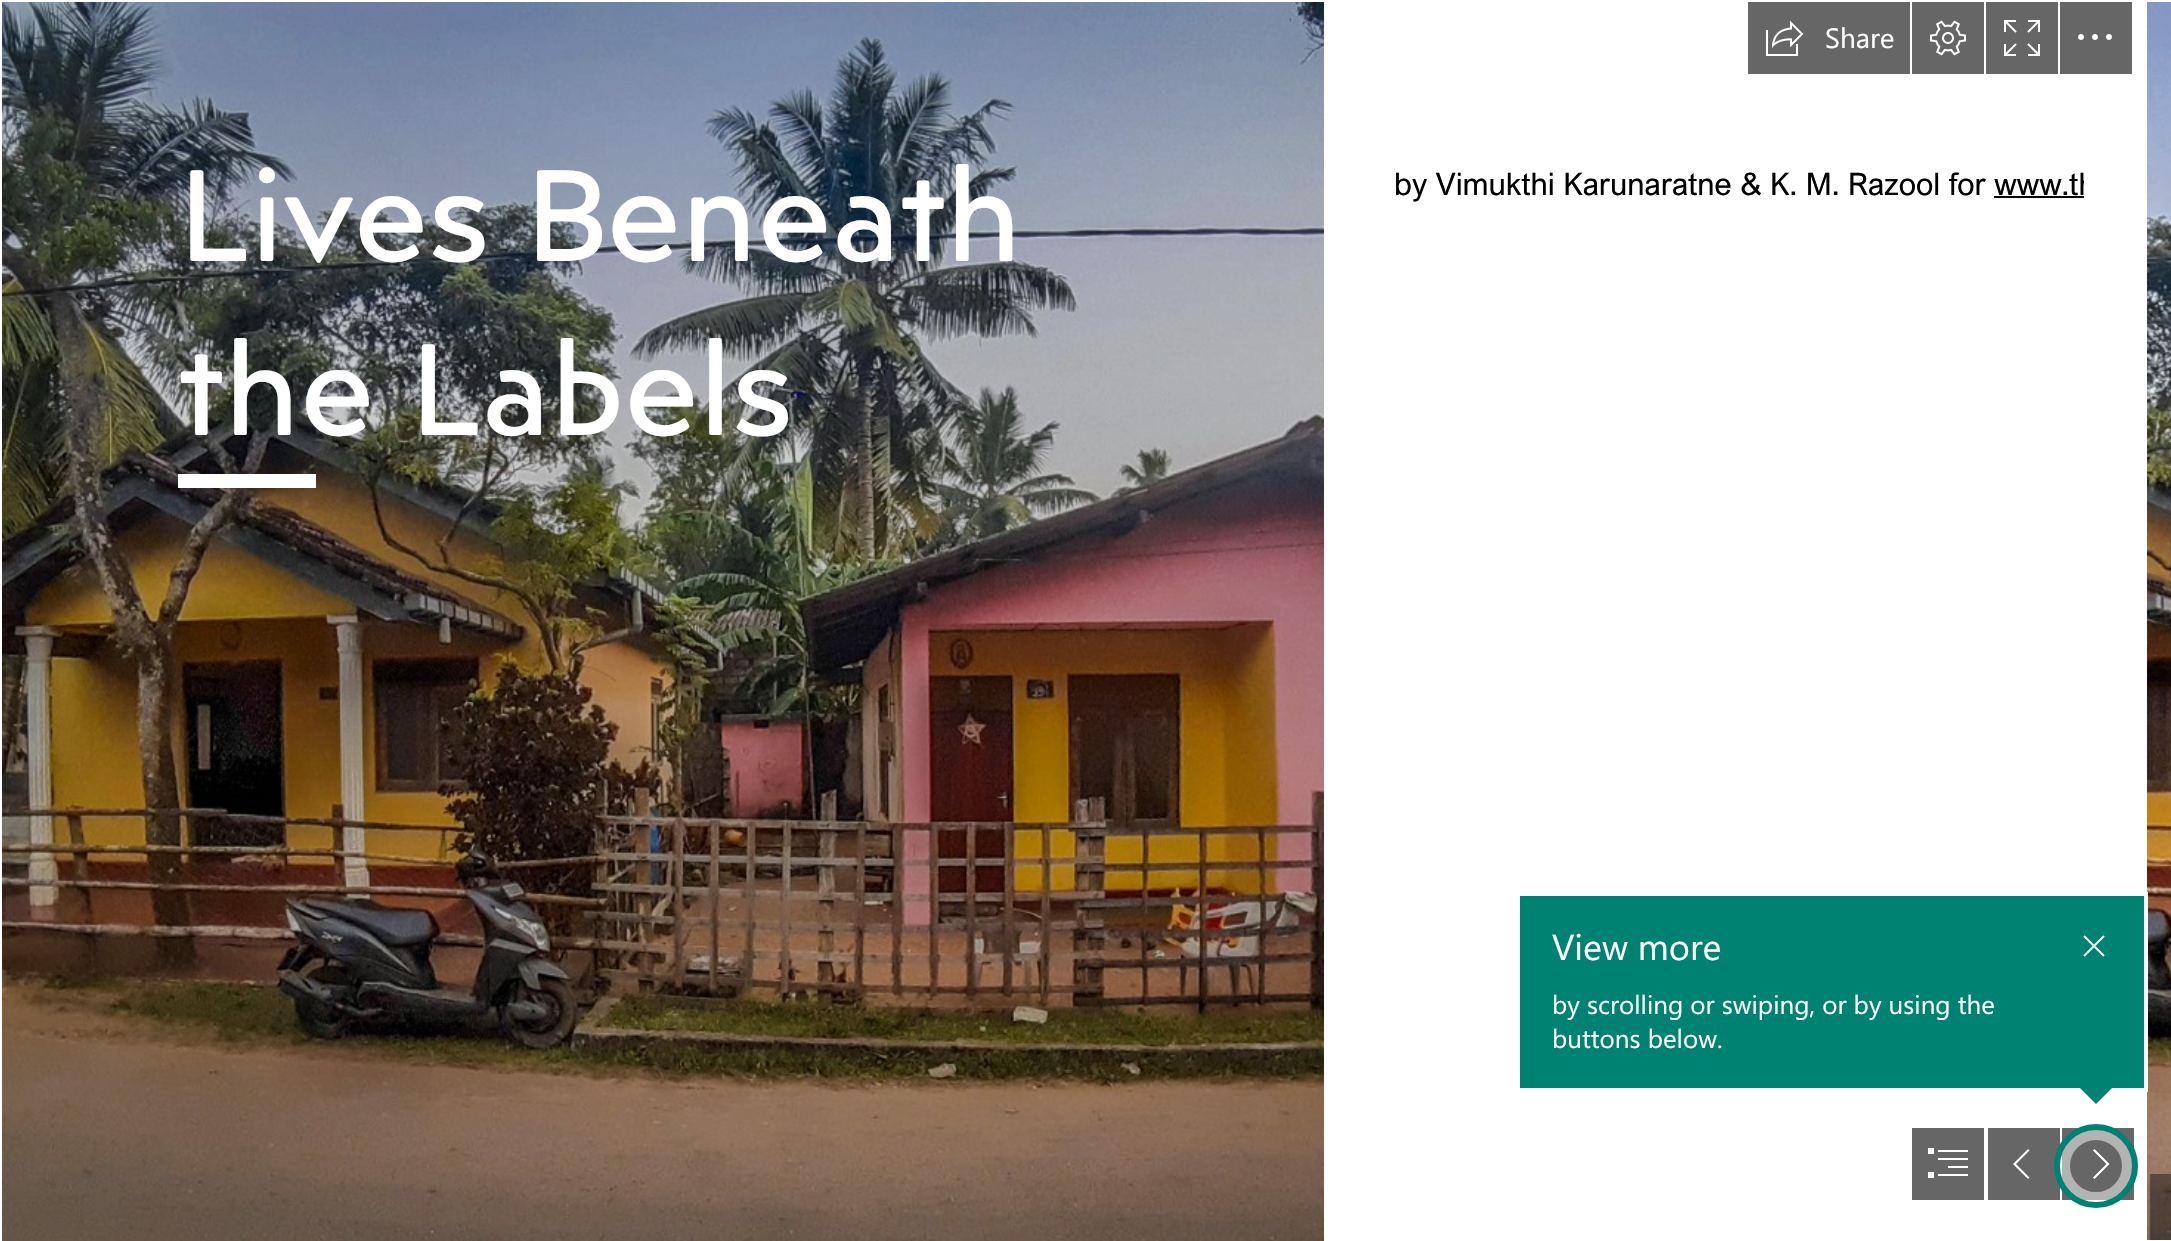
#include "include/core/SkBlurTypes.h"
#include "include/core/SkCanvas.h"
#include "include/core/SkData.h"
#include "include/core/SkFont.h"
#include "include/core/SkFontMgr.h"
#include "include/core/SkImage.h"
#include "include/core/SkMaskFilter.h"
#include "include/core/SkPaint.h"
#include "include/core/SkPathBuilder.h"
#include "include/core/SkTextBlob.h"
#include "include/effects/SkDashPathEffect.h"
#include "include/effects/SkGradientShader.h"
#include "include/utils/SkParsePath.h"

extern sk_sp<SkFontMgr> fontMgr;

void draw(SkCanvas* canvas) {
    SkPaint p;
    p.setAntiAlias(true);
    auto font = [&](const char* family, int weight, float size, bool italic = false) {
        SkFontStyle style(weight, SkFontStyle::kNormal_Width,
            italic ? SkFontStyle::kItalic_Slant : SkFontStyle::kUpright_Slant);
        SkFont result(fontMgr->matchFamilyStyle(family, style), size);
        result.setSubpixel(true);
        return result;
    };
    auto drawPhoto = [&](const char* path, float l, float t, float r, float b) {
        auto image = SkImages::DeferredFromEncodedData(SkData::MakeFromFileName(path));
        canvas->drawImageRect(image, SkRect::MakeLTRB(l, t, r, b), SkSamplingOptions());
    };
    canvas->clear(0xFFFFFFFF);
    p.setColor(0xFF666666);
    canvas->drawRect(SkRect::MakeLTRB(1748, 2, 1910, 74), p);
    drawPhoto("media/1.png", 1766, 20, 1804, 56);
    auto font1 = font("Segoe UI", 400, 28);
    p.setColor(0xFFFFFFFF);
    canvas->drawString("Share", 1825, 48, font1, p);
    p.setColor(0xFF666666);
    canvas->drawRect(SkRect::MakeLTRB(1912, 2, 1984, 74), p);
    drawPhoto("media/2.png", 1930, 20, 1966, 56);
    canvas->drawRect(SkRect::MakeLTRB(1986, 2, 2058, 74), p);
    drawPhoto("media/3.png", 2004, 20, 2040, 56);
    canvas->drawRect(SkRect::MakeLTRB(2060, 2, 2132, 74), p);
    drawPhoto("media/4.png", 2078, 34, 2112, 40);
    drawPhoto("media/5.png", 2, 2, 1324, 1241);
    auto font2 = font("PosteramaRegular", 400, 129.5f);
    p.setColor(0xFFFFFFFF);
    canvas->drawString("Lives Beneath", 179, 261, font2, p);
    canvas->drawString("the Labels", 179, 435, font2, p);
    canvas->drawRect(SkRect::MakeLTRB(178, 474, 316, 488), p);
    auto font3 = font("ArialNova", 400, 31.05f);
    p.setColor(0xFF000000);
    canvas->drawString("by Vimukthi Karunaratne & K. M. Razool for www.th", 1394, 195, font3, p);
    canvas->drawRect(SkRect::MakeLTRB(1994, 196, 2084, 198), p);
    drawPhoto("media/6.png", 2147, 2, 2171, 1240);
    p.setColor(0x66000000);
    canvas->drawRect(SkRect::MakeLTRB(2150, 1174, 2171, 1240), p);
    p.setColor(0xFFFFFFFF);
    canvas->drawRect(SkRect::MakeLTRB(2084, 178, 2094, 195), p);
    p.setColor(0xFF008272);
    canvas->drawRect(SkRect::MakeLTRB(1518, 894, 2146, 1090), p);
    p.setStyle(SkPaint::kStroke_Style);
    p.setStrokeWidth(4);
    p.setColor(0xFFFFFFFF);
    canvas->drawRect(SkRect::MakeLTRB(1518, 894, 2146, 1090), p);
    auto font4 = font("Segoe UI", 400, 36);
    p.setStyle(SkPaint::kFill_Style);
    canvas->drawString("View more", 1552, 960, font4, p);
    auto font5 = font("Segoe UI", 400, 26);
    canvas->drawString("by scrolling or swiping, or by using the", 1552, 1014, font5, p);
    canvas->drawString("buttons below.", 1552, 1048, font5, p);
    drawPhoto("media/7.png", 2083, 935, 2105, 957);
    p.setColor(0xFF008272);
    canvas->drawPath(SkPathBuilder().moveTo(2080, 1088).lineTo(2112, 1088).lineTo(2096, 1104).close().detach(), p);
    p.setColor(0xFF666666);
    canvas->drawRect(SkRect::MakeLTRB(1988, 1128, 2060, 1200), p);
    canvas->drawRect(SkRect::MakeLTRB(2062, 1128, 2134, 1200), p);
    p.setColor(0xFFFFFFFF);
    canvas->drawPath(SkPathBuilder().moveTo(2094.5f, 1179).lineTo(2093, 1177.5f).lineTo(2106.5f, 1164).lineTo(2093, 1150.5f).lineTo(2094.5f, 1149).lineTo(2109.5f, 1164).close().detach(), p);
    p.setStyle(SkPaint::kStroke_Style);
    p.setStrokeWidth(14);
    p.setColor(0x80FFFFFF);
    canvas->drawCircle(2096, 1166, 33, p);
    p.setStrokeWidth(6);
    p.setColor(0xFF008272);
    canvas->drawCircle(2096, 1166, 39, p);
    p.setStyle(SkPaint::kFill_Style);
    p.setColor(0xFF666666);
    canvas->drawRect(SkRect::MakeLTRB(1912, 1128, 1984, 1200), p);
    drawPhoto("media/8.png", 1928, 1148, 1968, 1178);
    p.setColor(0xFFFFFFFF);
    canvas->drawPath(SkPathBuilder().moveTo(2013, 1164).lineTo(2028, 1149).lineTo(2029.5f, 1150.5f).lineTo(2016, 1164).lineTo(2029.5f, 1177.5f).lineTo(2028, 1179).close().detach(), p);
}
